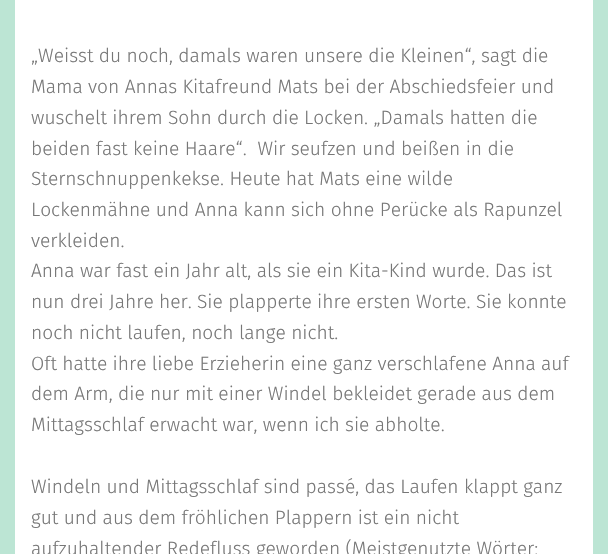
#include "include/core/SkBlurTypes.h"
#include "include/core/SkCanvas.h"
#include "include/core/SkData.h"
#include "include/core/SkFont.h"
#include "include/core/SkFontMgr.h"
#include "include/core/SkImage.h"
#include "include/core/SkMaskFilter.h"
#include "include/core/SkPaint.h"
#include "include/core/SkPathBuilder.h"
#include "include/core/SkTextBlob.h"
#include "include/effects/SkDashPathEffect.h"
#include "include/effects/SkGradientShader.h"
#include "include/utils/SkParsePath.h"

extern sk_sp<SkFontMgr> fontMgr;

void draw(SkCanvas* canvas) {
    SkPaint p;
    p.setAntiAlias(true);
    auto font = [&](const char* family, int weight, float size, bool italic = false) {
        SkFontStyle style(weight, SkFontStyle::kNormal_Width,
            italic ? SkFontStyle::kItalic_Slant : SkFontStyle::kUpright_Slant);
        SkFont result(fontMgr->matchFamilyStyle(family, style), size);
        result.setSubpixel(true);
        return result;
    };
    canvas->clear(0xFFBCE5D4);
    p.setColor(0xFFFFFFFF);
    canvas->drawRect(SkRect::MakeLTRB(15, 0, 593, 554), p);
    auto font1 = font("Fira Sans", 300, 19.2f);
    p.setColor(0xFF777777);
    {
        const struct { const char* s; float x, y; } items[] = {
            {"„Weisst du noch, damals waren unsere die Kleinen“, sagt die", 31, 62},
            {"Mama von Annas Kitafreund Mats bei der Abschiedsfeier und", 31, 93},
            {"wuschelt ihrem Sohn durch die Locken. „Damals hatten die", 31, 124},
            {"beiden fast keine Haare“.  Wir seufzen und beißen in die", 31, 155},
            {"Sternschnuppenkekse. Heute hat Mats eine wilde", 31, 185},
            {"Lockenmähne und Anna kann sich ohne Perücke als Rapunzel", 31, 216},
            {"verkleiden.", 31, 247},
            {"Anna war fast ein Jahr alt, als sie ein Kita-Kind wurde. Das ist", 31, 277},
            {"nun drei Jahre her. Sie plapperte ihre ersten Worte. Sie konnte", 31, 308},
            {"noch nicht laufen, noch lange nicht.", 31, 339},
            {"Oft hatte ihre liebe Erzieherin eine ganz verschlafene Anna auf", 31, 370},
            {"dem Arm, die nur mit einer Windel bekleidet gerade aus dem", 31, 400},
            {"Mittagsschlaf erwacht war, wenn ich sie abholte.", 31, 431},
            {"Windeln und Mittagsschlaf sind passé, das Laufen klappt ganz", 31, 493},
            {"gut und aus dem fröhlichen Plappern ist ein nicht", 31, 524},
            {"aufzuhaltender Redefluss geworden (Meistgenutzte Wörter:", 31, 555},
        };
        for (auto [s, x, y] : items) {
            canvas->drawString(s, x, y, font1, p);
        }
    }
}
